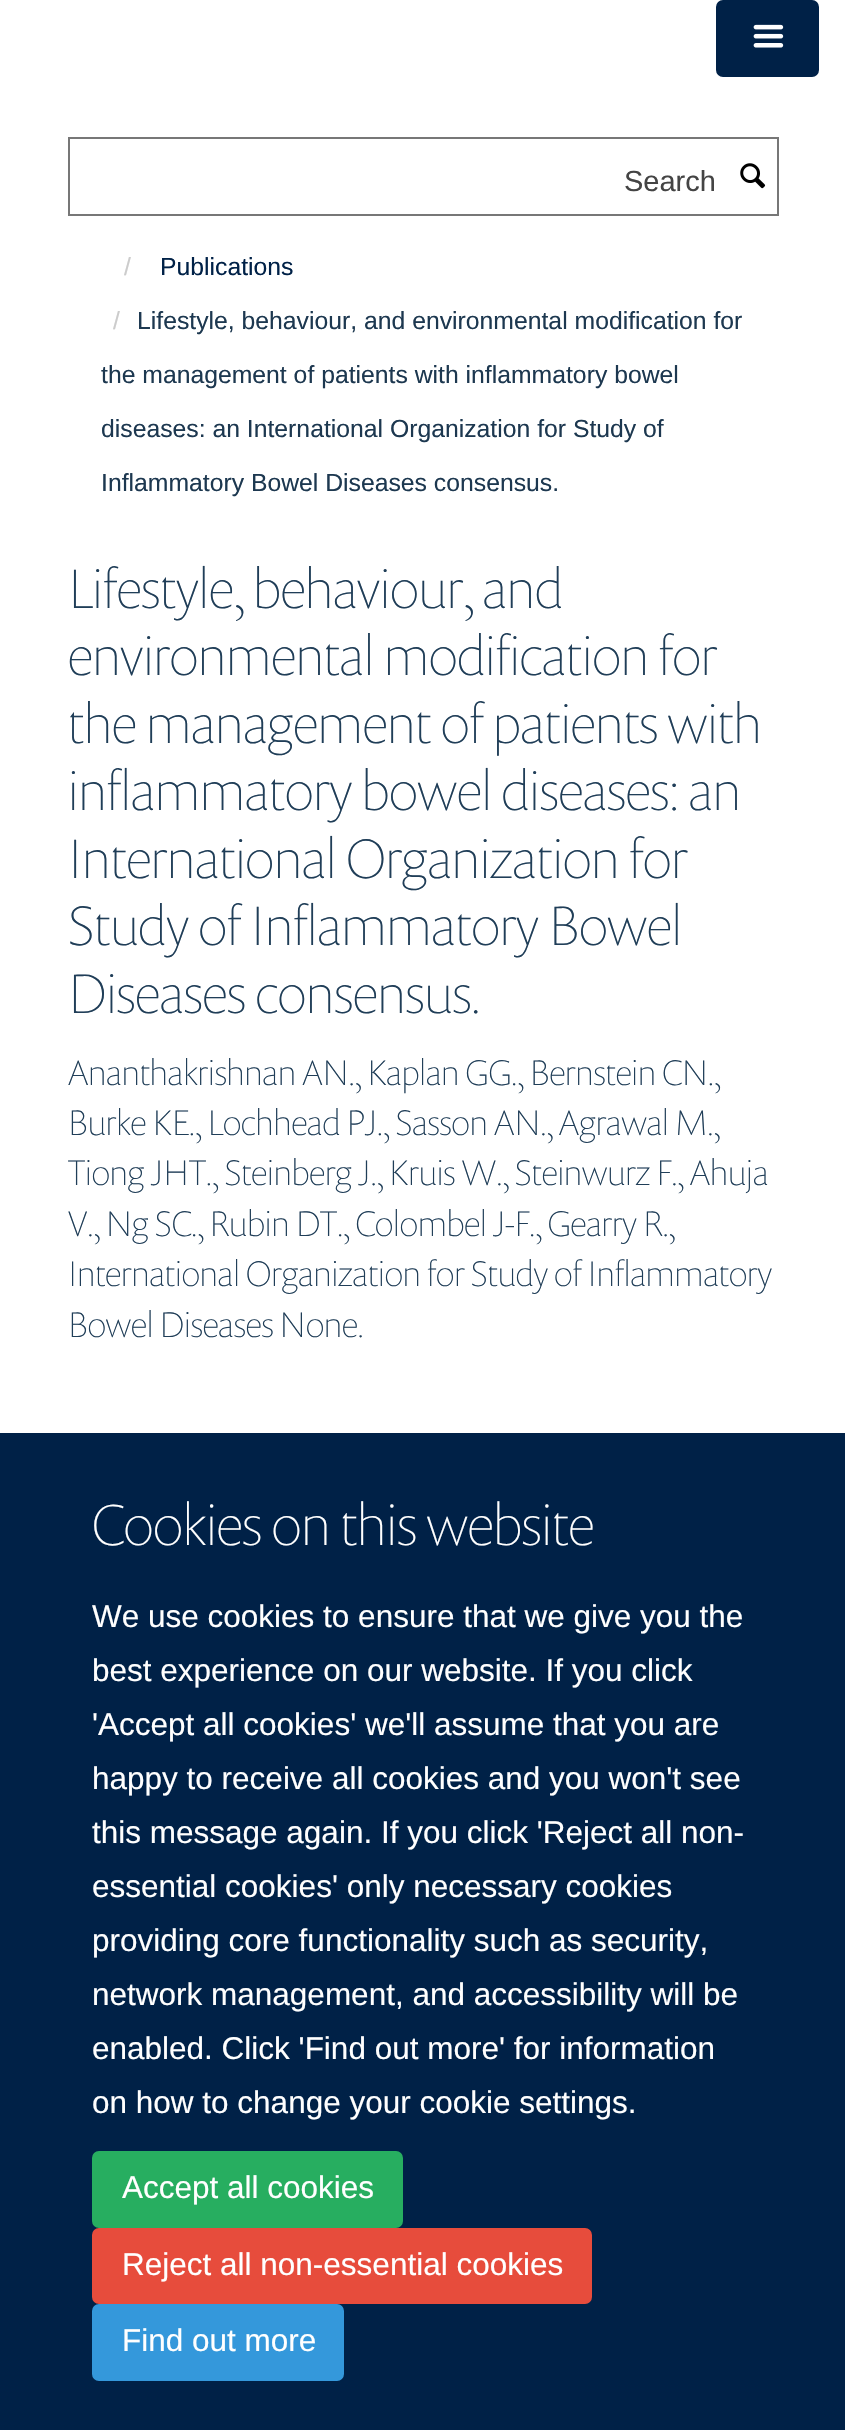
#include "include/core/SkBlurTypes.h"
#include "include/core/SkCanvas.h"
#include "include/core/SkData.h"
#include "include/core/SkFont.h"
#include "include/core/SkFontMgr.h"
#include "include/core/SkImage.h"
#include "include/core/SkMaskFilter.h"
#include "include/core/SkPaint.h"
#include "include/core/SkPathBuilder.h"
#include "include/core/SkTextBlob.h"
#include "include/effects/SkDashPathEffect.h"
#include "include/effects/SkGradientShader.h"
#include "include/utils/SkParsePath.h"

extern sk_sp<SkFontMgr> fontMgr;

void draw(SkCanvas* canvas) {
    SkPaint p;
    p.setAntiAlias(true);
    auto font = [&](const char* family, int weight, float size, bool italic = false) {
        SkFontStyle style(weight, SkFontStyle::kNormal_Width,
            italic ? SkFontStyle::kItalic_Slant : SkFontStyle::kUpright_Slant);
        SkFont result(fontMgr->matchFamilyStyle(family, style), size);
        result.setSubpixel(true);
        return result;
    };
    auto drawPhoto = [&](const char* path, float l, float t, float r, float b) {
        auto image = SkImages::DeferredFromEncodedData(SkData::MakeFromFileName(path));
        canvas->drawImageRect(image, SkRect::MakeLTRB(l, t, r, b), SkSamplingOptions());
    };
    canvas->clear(0xFFFFFFFF);
    p.setColor(0xFF002147);
    canvas->drawRoundRect(SkRect::MakeLTRB(717, 1, 818, 76), 6, 6, p);
    p.setStyle(SkPaint::kStroke_Style);
    p.setStrokeWidth(2);
    canvas->drawRoundRect(SkRect::MakeLTRB(717, 1, 818, 76), 6, 6, p);
    drawPhoto("media/1.png", 753, 24, 784, 48);
    p.setColor(0xFF777777);
    canvas->drawRect(SkRect::MakeLTRB(69, 138, 778, 215), p);
    auto font1 = font("Liberation Sans", 400, 29);
    p.setStyle(SkPaint::kFill_Style);
    p.setColor(0xFF444444);
    canvas->drawString("Search", 624, 191, font1, p);
    drawPhoto("media/2.png", 740, 163, 766, 189);
    auto font2 = font("Liberation Sans", 400, 24.75f);
    p.setColor(0xFFCCCCCC);
    canvas->drawString("/", 124, 275, font2, p);
    p.setColor(0xFF002147);
    canvas->drawString("Publications", 160, 275, font2, p);
    p.setColor(0xFFCCCCCC);
    canvas->drawString("/", 113, 329, font2, p);
    p.setColor(0xFF1D3850);
    {
        const struct { const char* s; float x, y; } items[] = {
            {"Lifestyle, behaviour, and environmental modification for", 137, 329},
            {"the management of patients with inflammatory bowel", 101, 383},
            {"diseases: an International Organization for Study of", 101, 437},
            {"Inflammatory Bowel Diseases consensus.", 101, 491},
        };
        for (auto [s, x, y] : items) {
            canvas->drawString(s, x, y, font2, p);
        }
    }
    auto font3 = font("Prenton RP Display", 100, 56.25f);
    p.setColor(0xFF203E58);
    {
        const struct { const char* s; float x, y; } items[] = {
            {"Lifestyle, behaviour, and", 68, 608},
            {"environmental modification for", 68, 675},
            {"the management of patients with", 68, 743},
            {"inflammatory bowel diseases: an", 68, 810},
            {"International Organization for", 68, 878},
            {"Study of Inflammatory Bowel", 68, 945},
            {"Diseases consensus.", 68, 1013},
        };
        for (auto [s, x, y] : items) {
            canvas->drawString(s, x, y, font3, p);
        }
    }
    auto font4 = font("Prenton RP Display", 100, 36);
    {
        const struct { const char* s; float x, y; } items[] = {
            {"Ananthakrishnan AN., Kaplan GG., Bernstein CN.,", 68, 1085},
            {"Burke KE., Lochhead PJ., Sasson AN., Agrawal M.,", 68, 1135},
            {"Tiong JHT., Steinberg J., Kruis W., Steinwurz F., Ahuja", 68, 1185},
            {"V., Ng SC., Rubin DT., Colombel J-F., Gearry R.,", 68, 1236},
            {"International Organization for Study of Inflammatory", 68, 1286},
            {"Bowel Diseases None.", 68, 1337},
        };
        for (auto [s, x, y] : items) {
            canvas->drawString(s, x, y, font4, p);
        }
    }
    p.setColor(0xFF002147);
    canvas->drawRect(SkRect::MakeLTRB(0, 1433, 845, 2430), p);
    auto font5 = font("Prenton RP Display", 100, 58.5f);
    p.setColor(0xFFFFFFFF);
    canvas->drawString("Cookies on this website", 92, 1545, font5, p);
    auto font6 = font("Liberation Sans", 400, 31.5f);
    {
        const struct { const char* s; float x, y; } items[] = {
            {"We use cookies to ensure that we give you the", 92, 1627},
            {"best experience on our website. If you click", 92, 1681},
            {"'Accept all cookies' we'll assume that you are", 92, 1735},
            {"happy to receive all cookies and you won't see", 92, 1789},
            {"this message again. If you click 'Reject all non-", 92, 1843},
            {"essential cookies' only necessary cookies", 92, 1897},
            {"providing core functionality such as security,", 92, 1951},
            {"network management, and accessibility will be", 92, 2005},
            {"enabled. Click 'Find out more' for information", 92, 2059},
            {"on how to change your cookie settings.", 92, 2113},
        };
        for (auto [s, x, y] : items) {
            canvas->drawString(s, x, y, font6, p);
        }
    }
    p.setColor(0xFF27AE60);
    canvas->drawRoundRect(SkRect::MakeLTRB(93, 2152, 402, 2227), 6, 6, p);
    p.setStyle(SkPaint::kStroke_Style);
    canvas->drawRoundRect(SkRect::MakeLTRB(93, 2152, 402, 2227), 6, 6, p);
    p.setStyle(SkPaint::kFill_Style);
    p.setColor(0xFFFFFFFF);
    canvas->drawString("Accept all cookies", 122, 2198, font6, p);
    p.setColor(0xFFE74C3C);
    canvas->drawRoundRect(SkRect::MakeLTRB(93, 2229, 591, 2303), 6, 6, p);
    p.setStyle(SkPaint::kStroke_Style);
    canvas->drawRoundRect(SkRect::MakeLTRB(93, 2229, 591, 2303), 6, 6, p);
    p.setStyle(SkPaint::kFill_Style);
    p.setColor(0xFFFFFFFF);
    canvas->drawString("Reject all non-essential cookies", 122, 2275, font6, p);
    p.setColor(0xFF3498DB);
    canvas->drawRoundRect(SkRect::MakeLTRB(93, 2305, 343, 2380), 6, 6, p);
    p.setStyle(SkPaint::kStroke_Style);
    canvas->drawRoundRect(SkRect::MakeLTRB(93, 2305, 343, 2380), 6, 6, p);
    p.setStyle(SkPaint::kFill_Style);
    p.setColor(0xFFFFFFFF);
    canvas->drawString("Find out more", 122, 2351, font6, p);
}
